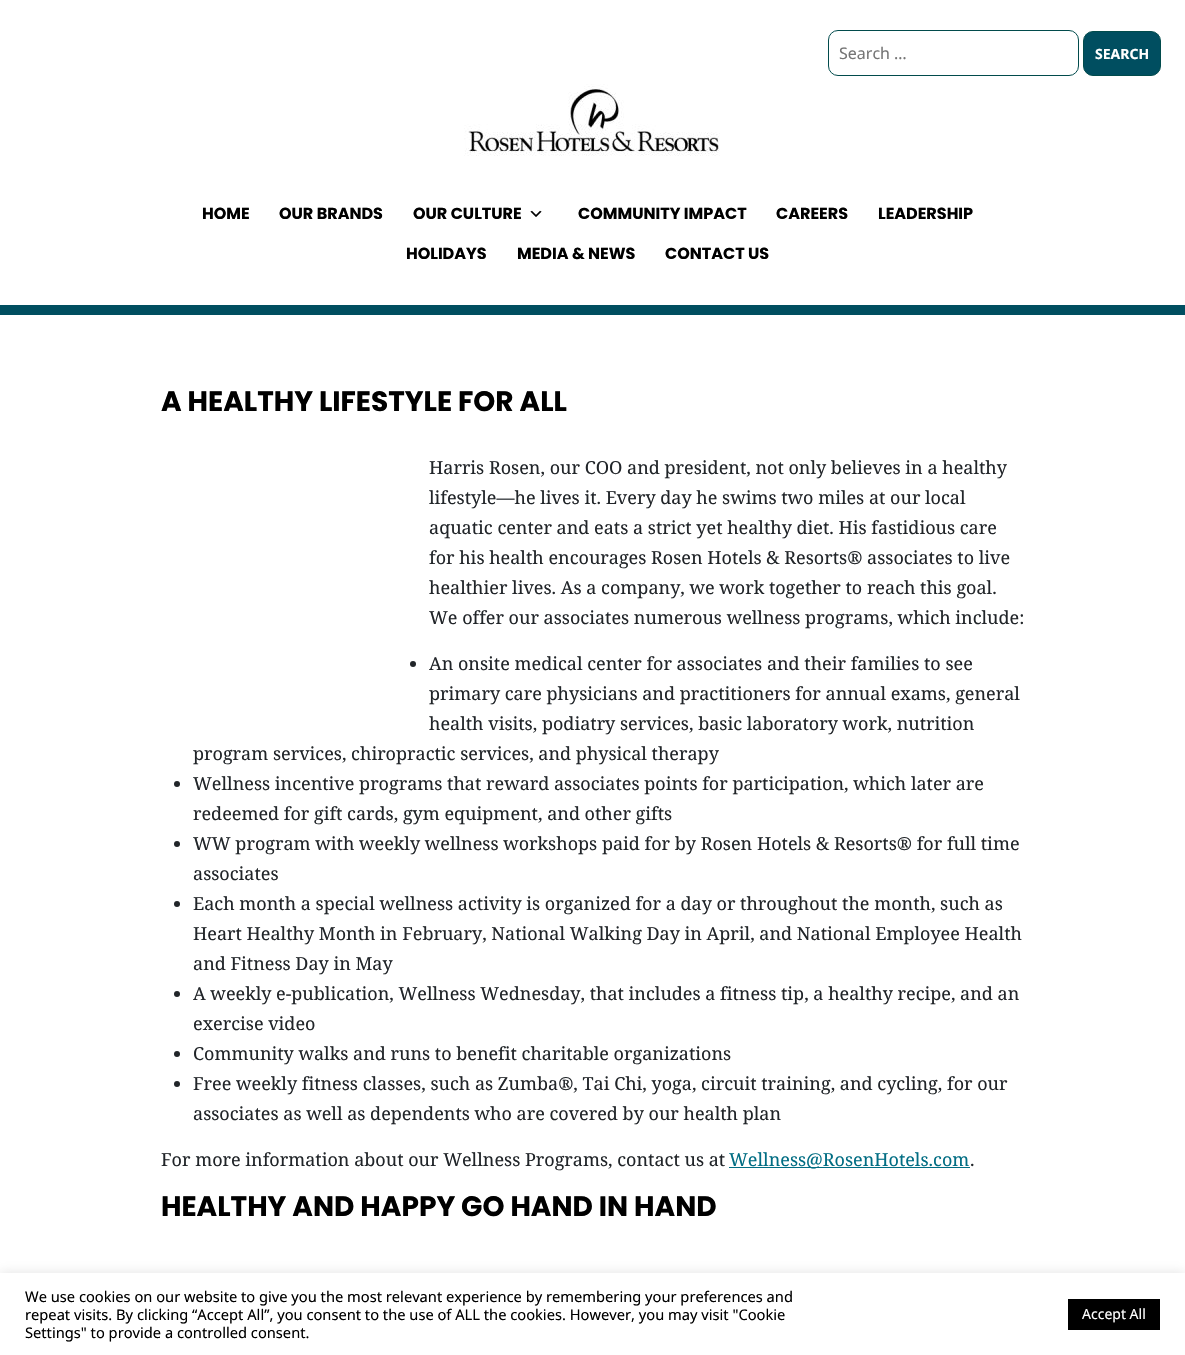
#include "include/core/SkBlurTypes.h"
#include "include/core/SkCanvas.h"
#include "include/core/SkData.h"
#include "include/core/SkFont.h"
#include "include/core/SkFontMgr.h"
#include "include/core/SkImage.h"
#include "include/core/SkMaskFilter.h"
#include "include/core/SkPaint.h"
#include "include/core/SkPathBuilder.h"
#include "include/core/SkTextBlob.h"
#include "include/effects/SkDashPathEffect.h"
#include "include/effects/SkGradientShader.h"
#include "include/utils/SkParsePath.h"

extern sk_sp<SkFontMgr> fontMgr;

void draw(SkCanvas* canvas) {
    SkPaint p;
    p.setAntiAlias(true);
    auto font = [&](const char* family, int weight, float size, bool italic = false) {
        SkFontStyle style(weight, SkFontStyle::kNormal_Width,
            italic ? SkFontStyle::kItalic_Slant : SkFontStyle::kUpright_Slant);
        SkFont result(fontMgr->matchFamilyStyle(family, style), size);
        result.setSubpixel(true);
        return result;
    };
    auto drawPhoto = [&](const char* path, float l, float t, float r, float b) {
        auto image = SkImages::DeferredFromEncodedData(SkData::MakeFromFileName(path));
        canvas->drawImageRect(image, SkRect::MakeLTRB(l, t, r, b), SkSamplingOptions());
    };
    canvas->clear(0xFFFFFFFF);
    p.setStyle(SkPaint::kStroke_Style);
    p.setStrokeWidth(1);
    p.setColor(0xFF014B4C);
    canvas->drawRoundRect(SkRect::MakeLTRB(828.5f, 30.5f, 1078.5f, 75.5f), 9.5f, 9.5f, p);
    auto font1 = font("Noto Sans", 400, 16);
    p.setStyle(SkPaint::kFill_Style);
    p.setColor(0xFF757575);
    canvas->drawString("Search …", 839, 59, font1, p);
    p.setColor(0xFF004E60);
    canvas->drawRoundRect(SkRect::MakeLTRB(1083.5f, 31.5f, 1160.5f, 75.5f), 9.5f, 9.5f, p);
    p.setStyle(SkPaint::kStroke_Style);
    p.setColor(0xFF014B4C);
    canvas->drawRoundRect(SkRect::MakeLTRB(1083.5f, 31.5f, 1160.5f, 75.5f), 9.5f, 9.5f, p);
    auto font2 = font("Noto Sans", 700, 14);
    p.setStyle(SkPaint::kFill_Style);
    p.setColor(0xFFFFFFFF);
    canvas->drawString("SEARCH", 1095, 59, font2, p);
    drawPhoto("media/1.png", 464, 84, 720, 156);
    auto font3 = font("Poppins", 700, 16);
    p.setColor(0xFF000000);
    {
        const struct { const char* s; float x, y; } items[] = {
            {"HOME", 202, 219},
            {"OUR BRANDS", 279, 219},
            {"OUR CULTURE", 413, 219},
        };
        for (auto [s, x, y] : items) {
            canvas->drawString(s, x, y, font3, p);
        }
    }
    drawPhoto("media/2.png", 530, 210, 542, 217);
    {
        const struct { const char* s; float x, y; } items[] = {
            {"COMMUNITY IMPACT", 578, 219},
            {"CAREERS", 776, 219},
            {"LEADERSHIP", 878, 219},
            {"HOLIDAYS", 406, 259},
            {"MEDIA & NEWS", 517, 259},
            {"CONTACT US", 665, 259},
        };
        for (auto [s, x, y] : items) {
            canvas->drawString(s, x, y, font3, p);
        }
    }
    p.setColor(0xFF004E60);
    canvas->drawRect(SkRect::MakeLTRB(0, 305, 1185, 315), p);
    auto font4 = font("Poppins", 700, 28);
    p.setColor(0xFF000000);
    canvas->drawString("A HEALTHY LIFESTYLE FOR ALL", 161, 411, font4, p);
    auto font5 = font("Noto Serif", 400, 18);
    p.setColor(0xFF212529);
    {
        const struct { const char* s; float x, y; } items[] = {
            {"Harris Rosen, our COO and president, not only believes in a healthy", 429, 474},
            {"lifestyle—he lives it. Every day he swims two miles at our local", 429, 504},
            {"aquatic center and eats a strict yet healthy diet. His fastidious care", 429, 534},
            {"for his health encourages Rosen Hotels & Resorts® associates to live", 429, 564},
            {"healthier lives. As a company, we work together to reach this goal.", 429, 594},
            {"We offer our associates numerous wellness programs, which include:", 429, 624},
        };
        for (auto [s, x, y] : items) {
            canvas->drawString(s, x, y, font5, p);
        }
    }
    canvas->drawCircle(413, 664, 3, p);
    {
        const struct { const char* s; float x, y; } items[] = {
            {"An onsite medical center for associates and their families to see", 429, 670},
            {"primary care physicians and practitioners for annual exams, general", 429, 700},
            {"health visits, podiatry services, basic laboratory work, nutrition", 429, 730},
            {"program services, chiropractic services, and physical therapy", 193, 760},
        };
        for (auto [s, x, y] : items) {
            canvas->drawString(s, x, y, font5, p);
        }
    }
    canvas->drawCircle(177, 784, 3, p);
    canvas->drawString("Wellness incentive programs that reward associates points for participation, which later are", 193, 790, font5, p);
    canvas->drawString("redeemed for gift cards, gym equipment, and other gifts", 193, 820, font5, p);
    canvas->drawCircle(177, 844, 3, p);
    canvas->drawString("WW program with weekly wellness workshops paid for by Rosen Hotels & Resorts® for full time", 193, 850, font5, p);
    canvas->drawString("associates", 193, 880, font5, p);
    canvas->drawCircle(177, 904, 3, p);
    {
        const struct { const char* s; float x, y; } items[] = {
            {"Each month a special wellness activity is organized for a day or throughout the month, such as", 193, 910},
            {"Heart Healthy Month in February, National Walking Day in April, and National Employee Health", 193, 940},
            {"and Fitness Day in May", 193, 970},
        };
        for (auto [s, x, y] : items) {
            canvas->drawString(s, x, y, font5, p);
        }
    }
    canvas->drawCircle(177, 994, 3, p);
    canvas->drawString("A weekly e-publication, Wellness Wednesday, that includes a fitness tip, a healthy recipe, and an", 193, 1000, font5, p);
    canvas->drawString("exercise video", 193, 1030, font5, p);
    canvas->drawCircle(177, 1054, 3, p);
    canvas->drawString("Community walks and runs to benefit charitable organizations", 193, 1060, font5, p);
    canvas->drawCircle(177, 1084, 3, p);
    {
        const struct { const char* s; float x, y; } items[] = {
            {"Free weekly fitness classes, such as Zumba®, Tai Chi, yoga, circuit training, and cycling, for our", 193, 1090},
            {"associates as well as dependents who are covered by our health plan", 193, 1120},
            {"For more information about our Wellness Programs, contact us at", 161, 1166},
        };
        for (auto [s, x, y] : items) {
            canvas->drawString(s, x, y, font5, p);
        }
    }
    p.setColor(0xFF016D83);
    canvas->drawRect(SkRect::MakeLTRB(729, 1167, 970, 1168), p);
    canvas->drawString("Wellness@RosenHotels.com", 729, 1166, font5, p);
    p.setColor(0xFF212529);
    canvas->drawString(".", 970, 1166, font5, p);
    p.setColor(0xFF000000);
    canvas->drawString("HEALTHY AND HAPPY GO HAND IN HAND", 161, 1216, font4, p);
    p.setColor(0x4DACABAB);
    p.setMaskFilter(SkMaskFilter::MakeBlur(kNormal_SkBlurStyle, 5));
    canvas->drawRect(SkRect::MakeLTRB(0, 1272, 1185, 1354), p);
    p.setMaskFilter(nullptr);
    p.setColor(0xFFFFFFFF);
    canvas->drawRect(SkRect::MakeLTRB(0, 1273, 1185, 1355), p);
    auto font6 = font("Noto Sans", 400, 14.67f);
    p.setColor(0xFF000000);
    {
        const struct { const char* s; float x, y; } items[] = {
            {"We use cookies on our website to give you the most relevant experience by remembering your preferences and", 25, 1302},
            {"repeat visits. By clicking “Accept All”, you consent to the use of ALL the cookies. However, you may visit \"Cookie", 25, 1320},
            {"Settings\" to provide a controlled consent.", 25, 1338},
        };
        for (auto [s, x, y] : items) {
            canvas->drawString(s, x, y, font6, p);
        }
    }
    canvas->drawRect(SkRect::MakeLTRB(1068, 1299, 1160, 1330), p);
    auto font7 = font("Noto Sans", 400, 14);
    p.setColor(0xFFFFFFFF);
    canvas->drawString("Accept All", 1082, 1319, font7, p);
}
